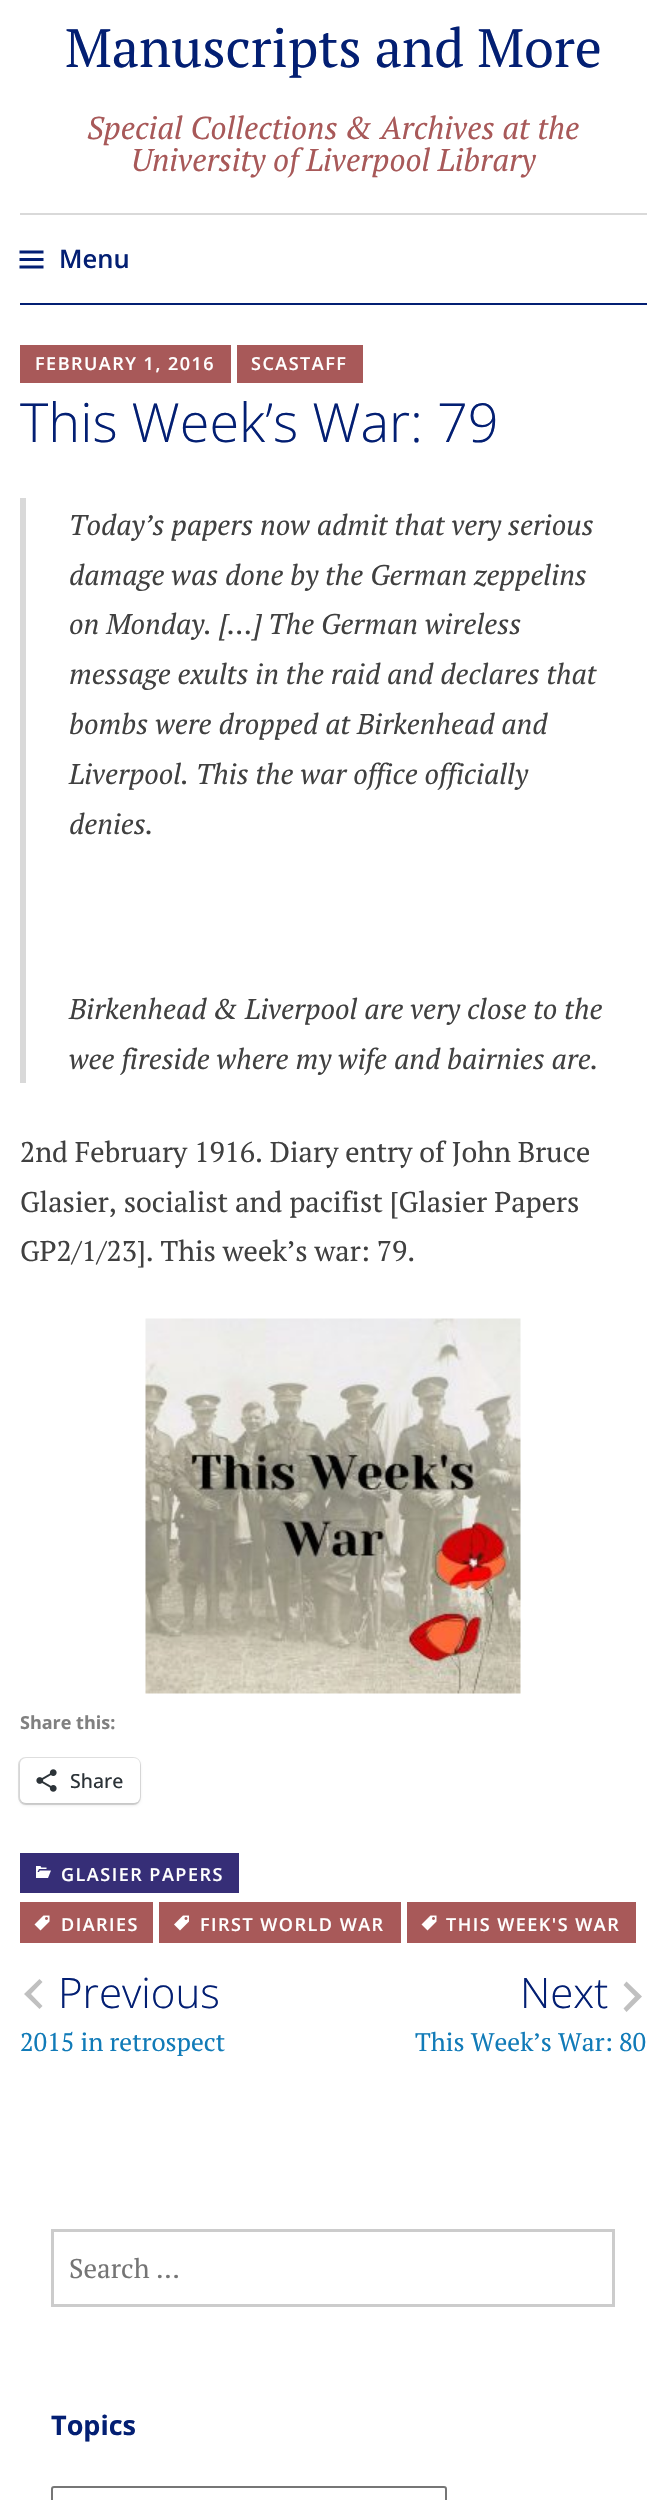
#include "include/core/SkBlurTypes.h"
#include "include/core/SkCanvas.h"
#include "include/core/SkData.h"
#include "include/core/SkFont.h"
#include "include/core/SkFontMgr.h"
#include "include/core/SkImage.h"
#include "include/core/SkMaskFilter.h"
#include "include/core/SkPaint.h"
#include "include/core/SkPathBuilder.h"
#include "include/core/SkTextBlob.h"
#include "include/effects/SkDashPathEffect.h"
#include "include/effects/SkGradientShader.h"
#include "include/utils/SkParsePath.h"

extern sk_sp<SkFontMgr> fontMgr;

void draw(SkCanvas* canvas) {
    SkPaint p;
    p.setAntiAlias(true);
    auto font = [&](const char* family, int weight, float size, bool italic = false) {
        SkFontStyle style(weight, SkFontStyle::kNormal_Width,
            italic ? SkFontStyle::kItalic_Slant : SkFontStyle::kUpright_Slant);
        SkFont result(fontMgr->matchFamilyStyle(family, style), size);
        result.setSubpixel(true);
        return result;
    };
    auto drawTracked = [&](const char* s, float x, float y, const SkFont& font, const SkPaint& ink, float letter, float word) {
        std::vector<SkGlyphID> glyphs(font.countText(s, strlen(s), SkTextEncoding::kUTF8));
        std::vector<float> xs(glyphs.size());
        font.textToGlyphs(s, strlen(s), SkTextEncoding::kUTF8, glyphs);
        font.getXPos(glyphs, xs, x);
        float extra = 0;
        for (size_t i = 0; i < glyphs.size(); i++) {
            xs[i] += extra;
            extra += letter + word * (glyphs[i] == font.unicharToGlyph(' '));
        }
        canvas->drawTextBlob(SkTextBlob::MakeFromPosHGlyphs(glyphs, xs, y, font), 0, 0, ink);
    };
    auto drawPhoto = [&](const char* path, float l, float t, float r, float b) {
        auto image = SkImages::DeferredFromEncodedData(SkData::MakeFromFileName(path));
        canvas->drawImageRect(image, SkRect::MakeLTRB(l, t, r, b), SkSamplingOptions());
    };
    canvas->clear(0xFFFFFFFF);
    auto font1 = font("PT Serif", 400, 54);
    p.setColor(0xFF031F73);
    canvas->drawString("Manuscripts and More", 65, 67, font1, p);
    auto font2 = font("PT Serif", 400, 31.5f, true);
    p.setColor(0xFFA85959);
    canvas->drawString("Special Collections & Archives at the", 87, 139, font2, p);
    canvas->drawString("University of Liverpool Library", 131, 171, font2, p);
    p.setColor(0xFFD9D9D9);
    canvas->drawRect(SkRect::MakeLTRB(20, 213, 647, 215), p);
    p.setColor(0xFF031F73);
    canvas->drawRect(SkRect::MakeLTRB(20, 303, 647, 305), p);
    drawPhoto("media/1.png", 19, 250, 44, 269);
    auto font3 = font("Open Sans", 600, 25.5f);
    canvas->drawString("Menu", 59, 268, font3, p);
    p.setColor(0xFFA85959);
    canvas->drawRect(SkRect::MakeLTRB(20, 345, 231, 383), p);
    auto font4 = font("Open Sans", 600, 18);
    p.setColor(0xFFFFFFFF);
    drawTracked("FEBRUARY 1, 2016", 35, 370, font4, p, 1.5f, 0);
    p.setColor(0xFFA85959);
    canvas->drawRect(SkRect::MakeLTRB(237, 345, 363, 383), p);
    p.setColor(0xFFFFFFFF);
    drawTracked("SCASTAFF", 251, 370, font4, p, 1.5f, 0);
    auto font5 = font("Open Sans", 300, 54);
    p.setColor(0xFF031F73);
    canvas->drawString("This Week’s War: 79", 20, 442, font5, p);
    p.setColor(0xFFD9D9D9);
    canvas->drawRect(SkRect::MakeLTRB(20, 498, 26, 1083), p);
    auto font6 = font("PT Serif", 400, 28.5f, true);
    p.setColor(0xFF404040);
    {
        const struct { const char* s; float x, y; } items[] = {
            {"Today’s papers now admit that very serious", 69, 535},
            {"damage was done by the German zeppelins", 69, 585},
            {"on Monday. […] The German wireless", 69, 634},
            {"message exults in the raid and declares that", 69, 684},
            {"bombs were dropped at Birkenhead and", 69, 734},
            {"Liverpool. This the war office officially", 69, 784},
            {"denies.", 69, 834},
            {"Birkenhead & Liverpool are very close to the", 69, 1019},
            {"wee fireside where my wife and bairnies are.", 69, 1069},
        };
        for (auto [s, x, y] : items) {
            canvas->drawString(s, x, y, font6, p);
        }
    }
    auto font7 = font("PT Serif", 400, 28.5f);
    {
        const struct { const char* s; float x, y; } items[] = {
            {"2nd February 1916. Diary entry of John Bruce", 20, 1162},
            {"Glasier, socialist and pacifist [Glasier Papers", 20, 1212},
            {"GP2/1/23]. This week’s war: 79.", 20, 1261},
        };
        for (auto [s, x, y] : items) {
            canvas->drawString(s, x, y, font7, p);
        }
    }
    drawPhoto("media/2.png", 145, 1318, 521, 1694);
    auto font8 = font("Open Sans", 700, 18);
    p.setColor(0xFF808080);
    canvas->drawString("Share this:", 20, 1729, font8, p);
    p.setStyle(SkPaint::kStroke_Style);
    p.setStrokeWidth(2);
    p.setColor(0xFFE0E0E0);
    canvas->drawRoundRect(SkRect::MakeLTRB(19, 1758, 140, 1804), 7, 7, p);
    p.setStyle(SkPaint::kFill_Style);
    p.setColor(0x1F000000);
    p.setMaskFilter(SkMaskFilter::MakeBlur(kNormal_SkBlurStyle, 1.5f));
    canvas->drawRoundRect(SkRect::MakeLTRB(20, 1760, 140, 1805), 6, 6, p);
    p.setMaskFilter(nullptr);
    p.setColor(0xFFFFFFFF);
    canvas->drawRoundRect(SkRect::MakeLTRB(20, 1758, 140, 1803), 6, 6, p);
    drawPhoto("media/3.png", 36, 1769, 57, 1792);
    auto font9 = font("Open Sans", 500, 19.5f);
    p.setColor(0xFF2C3338);
    canvas->drawString("Share", 70, 1788, font9, p);
    p.setColor(0xFF362E77);
    canvas->drawRect(SkRect::MakeLTRB(20, 1853, 239, 1893), p);
    drawPhoto("media/4.png", 36, 1866, 51, 1878);
    p.setColor(0xFFFFFFFF);
    drawTracked("GLASIER PAPERS", 61, 1881, font4, p, 1.5f, 0);
    p.setColor(0xFFA85959);
    canvas->drawRect(SkRect::MakeLTRB(20, 1902, 153, 1943), p);
    drawPhoto("media/5.png", 34, 1915, 50, 1931);
    p.setColor(0xFFFFFFFF);
    drawTracked("DIARIES", 61, 1931, font4, p, 1.5f, 0);
    p.setColor(0xFFA85959);
    canvas->drawRect(SkRect::MakeLTRB(159, 1902, 401, 1943), p);
    drawPhoto("media/6.png", 174, 1915, 189, 1931);
    p.setColor(0xFFFFFFFF);
    drawTracked("FIRST WORLD WAR", 200, 1931, font4, p, 1.5f, 0);
    p.setColor(0xFFA85959);
    canvas->drawRect(SkRect::MakeLTRB(407, 1902, 636, 1943), p);
    drawPhoto("media/5.png", 421, 1915, 437, 1931);
    p.setColor(0xFFFFFFFF);
    drawTracked("THIS WEEK'S WAR", 446, 1931, font4, p, 1.5f, 0);
    p.setColor(0xFFC0C0C0);
    canvas->drawPath(SkPathBuilder().moveTo(42.5f, 1982).lineTo(31, 1994).lineTo(42.5f, 2006).lineTo(39.5f, 2009).lineTo(24, 1994).lineTo(39.5f, 1979).close().detach(), p);
    auto font10 = font("Open Sans", 300, 42);
    p.setColor(0xFF031F73);
    canvas->drawString("Previous", 58, 2008, font10, p);
    auto font11 = font("PT Serif", 400, 25.5f);
    p.setColor(0xFF117BB8);
    canvas->drawString("2015 in retrospect", 20, 2051, font11, p);
    p.setColor(0xFF031F73);
    canvas->drawString("Next", 520, 2008, font10, p);
    p.setColor(0xFFC0C0C0);
    canvas->drawPath(SkPathBuilder().moveTo(623.5f, 2008.5f).lineTo(635, 1996.5f).lineTo(623.5f, 1985).lineTo(626.5f, 1981.5f).lineTo(642, 1996.5f).lineTo(626.5f, 2012).close().detach(), p);
    p.setColor(0xFF117BB8);
    canvas->drawString("This Week’s War: 80", 415, 2051, font11, p);
    p.setStyle(SkPaint::kStroke_Style);
    p.setStrokeWidth(3);
    p.setColor(0xFFCCCCCC);
    canvas->drawRect(SkRect::MakeLTRB(52.5f, 2230.5f, 613.5f, 2305.5f), p);
    auto font12 = font("PT Serif", 400, 27);
    p.setStyle(SkPaint::kFill_Style);
    p.setColor(0xFF757575);
    canvas->drawString("Search …", 69, 2278, font12, p);
    auto font13 = font("Open Sans", 700, 27);
    p.setColor(0xFF031F73);
    canvas->drawString("Topics", 51, 2435, font13, p);
    p.setStyle(SkPaint::kStroke_Style);
    p.setStrokeWidth(2);
    p.setColor(0xFF767676);
    canvas->drawRoundRect(SkRect::MakeLTRB(52, 2487, 446, 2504), 2, 2, p);
}
